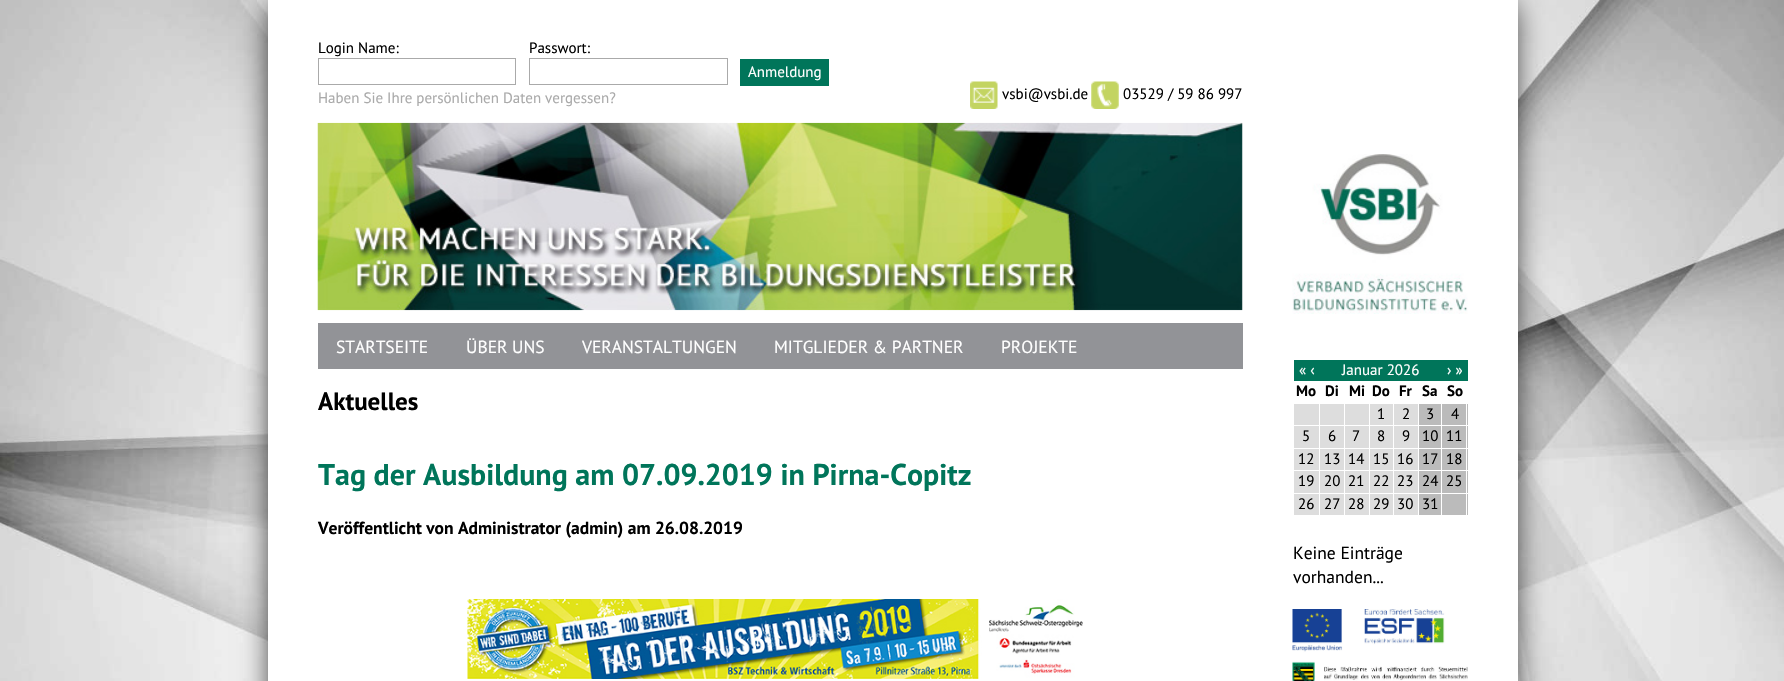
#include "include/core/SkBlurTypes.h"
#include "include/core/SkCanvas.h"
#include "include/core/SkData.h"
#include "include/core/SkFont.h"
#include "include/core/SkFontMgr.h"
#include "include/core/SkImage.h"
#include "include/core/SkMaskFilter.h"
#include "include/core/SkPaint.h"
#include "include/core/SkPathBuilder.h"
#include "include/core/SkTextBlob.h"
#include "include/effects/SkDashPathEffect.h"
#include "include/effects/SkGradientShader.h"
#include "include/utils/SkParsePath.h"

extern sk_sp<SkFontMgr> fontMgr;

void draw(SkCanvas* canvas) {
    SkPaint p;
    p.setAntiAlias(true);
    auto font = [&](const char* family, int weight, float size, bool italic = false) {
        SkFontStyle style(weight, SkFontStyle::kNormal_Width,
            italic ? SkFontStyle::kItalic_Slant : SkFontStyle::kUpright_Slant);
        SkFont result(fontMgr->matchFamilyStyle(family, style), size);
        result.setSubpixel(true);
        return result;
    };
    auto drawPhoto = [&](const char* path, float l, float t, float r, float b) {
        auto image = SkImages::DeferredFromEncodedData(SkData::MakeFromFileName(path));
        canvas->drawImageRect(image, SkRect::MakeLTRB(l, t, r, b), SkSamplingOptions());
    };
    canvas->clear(0xFFFFFFFF);
    drawPhoto("media/1.png", 0, 0, 1784, 681);
    p.setColor(0xFF000000);
    p.setMaskFilter(SkMaskFilter::MakeBlur(kNormal_SkBlurStyle, 15.5f));
    canvas->drawRect(SkRect::MakeLTRB(274, 5, 1511, 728), p);
    p.setMaskFilter(nullptr);
    p.setColor(0xFFFFFFFF);
    canvas->drawRect(SkRect::MakeLTRB(268, 0, 1518, 681), p);
    auto font1 = font("PT Sans", 400, 15);
    p.setColor(0xFF000000);
    canvas->drawString("Login Name:", 318, 53, font1, p);
    p.setStyle(SkPaint::kStroke_Style);
    p.setStrokeWidth(1);
    p.setColor(0xFFAAAAAA);
    canvas->drawRect(SkRect::MakeLTRB(318.5f, 58.5f, 515.5f, 84.5f), p);
    p.setStyle(SkPaint::kFill_Style);
    p.setColor(0xFF000000);
    canvas->drawString("Passwort:", 529, 53, font1, p);
    p.setStyle(SkPaint::kStroke_Style);
    p.setColor(0xFFAAAAAA);
    canvas->drawRect(SkRect::MakeLTRB(529.5f, 58.5f, 727.5f, 84.5f), p);
    p.setStyle(SkPaint::kFill_Style);
    p.setColor(0xFF00755A);
    canvas->drawRect(SkRect::MakeLTRB(740, 59, 829, 86), p);
    p.setColor(0xFFFFFFFF);
    canvas->drawString("Anmeldung", 748, 77, font1, p);
    p.setColor(0xFFAAAAAA);
    canvas->drawString("Haben Sie Ihre persönlichen Daten vergessen?", 318, 103, font1, p);
    drawPhoto("media/2.png", 970, 81, 998, 109);
    p.setColor(0xFF000000);
    canvas->drawString("vsbi@vsbi.de", 1002, 99, font1, p);
    drawPhoto("media/3.png", 1091, 81, 1119, 109);
    canvas->drawString("03529 / 59 86 997", 1123, 99, font1, p);
    drawPhoto("media/4.png", 317, 122, 1243, 311);
    p.setColor(0xFF929397);
    canvas->drawRect(SkRect::MakeLTRB(318, 323, 1243, 369), p);
    auto font2 = font("PT Sans", 400, 17.5f);
    p.setColor(0xFFFFFFFF);
    {
        const struct { const char* s; float x, y; } items[] = {
            {"STARTSEITE", 336, 353},
            {"ÜBER UNS", 466, 353},
            {"VERANSTALTUNGEN", 582, 353},
            {"MITGLIEDER & PARTNER", 774, 353},
            {"PROJEKTE", 1001, 353},
        };
        for (auto [s, x, y] : items) {
            canvas->drawString(s, x, y, font2, p);
        }
    }
    auto font3 = font("PT Sans", 700, 25);
    p.setColor(0xFF000000);
    canvas->drawString("Aktuelles", 318, 410, font3, p);
    auto font4 = font("PT Sans", 700, 30);
    p.setColor(0xFF00755A);
    canvas->drawString("Tag der Ausbildung am 07.09.2019 in Pirna-Copitz", 318, 485, font4, p);
    auto font5 = font("PT Sans", 700, 17.5f);
    p.setColor(0xFF000000);
    canvas->drawString("Veröffentlicht von Administrator (admin) am 26.08.2019", 318, 534, font5, p);
    drawPhoto("media/5.png", 467, 599, 1083, 679);
    drawPhoto("media/6.png", 1292, 154, 1468, 314);
    p.setColor(0xFF00755A);
    canvas->drawRect(SkRect::MakeLTRB(1294, 360, 1468, 381), p);
    p.setColor(0xFFFFFFFF);
    {
        const struct { const char* s; float x, y; } items[] = {
            {"« ‹", 1299, 375},
            {"Januar 2026", 1342, 375},
            {"› »", 1447, 375},
        };
        for (auto [s, x, y] : items) {
            canvas->drawString(s, x, y, font1, p);
        }
    }
    auto font6 = font("PT Sans", 700, 15);
    p.setColor(0xFF000000);
    {
        const struct { const char* s; float x, y; } items[] = {
            {"Mo", 1296, 396},
            {"Di", 1325, 396},
            {"Mi", 1349, 396},
            {"Do", 1372, 396},
            {"Fr", 1399, 396},
            {"Sa", 1422, 396},
            {"So", 1447, 396},
        };
        for (auto [s, x, y] : items) {
            canvas->drawString(s, x, y, font6, p);
        }
    }
    {
        const struct { float l, t, r, b; SkColor color; } items[] = {
            {1294, 404, 1319, 425, 0xFFDDDDDD},
            {1320, 404, 1344, 425, 0xFFDDDDDD},
            {1345, 404, 1369, 425, 0xFFDDDDDD},
            {1370, 404, 1393, 425, 0xFFDDDDDD},
        };
        for (auto [l, t, r, b, color] : items) {
            p.setColor(color);
            canvas->drawRect(SkRect::MakeLTRB(l, t, r, b), p);
        }
    }
    p.setColor(0xFF000000);
    canvas->drawString("1", 1377, 419, font1, p);
    p.setColor(0xFFDDDDDD);
    canvas->drawRect(SkRect::MakeLTRB(1394, 404, 1418, 425), p);
    p.setColor(0xFF000000);
    canvas->drawString("2", 1402, 419, font1, p);
    p.setColor(0xFFBBBBBB);
    canvas->drawRect(SkRect::MakeLTRB(1419, 404, 1468, 425), p);
    p.setColor(0xFF000000);
    canvas->drawString("3", 1426, 419, font1, p);
    canvas->drawString("4", 1451, 419, font1, p);
    p.setColor(0xFFDDDDDD);
    canvas->drawRect(SkRect::MakeLTRB(1294, 426, 1319, 448), p);
    p.setColor(0xFF000000);
    canvas->drawString("5", 1302, 441, font1, p);
    p.setColor(0xFFDDDDDD);
    canvas->drawRect(SkRect::MakeLTRB(1320, 426, 1344, 448), p);
    p.setColor(0xFF000000);
    canvas->drawString("6", 1328, 441, font1, p);
    p.setColor(0xFFDDDDDD);
    canvas->drawRect(SkRect::MakeLTRB(1345, 426, 1369, 448), p);
    p.setColor(0xFF000000);
    canvas->drawString("7", 1352, 441, font1, p);
    p.setColor(0xFFDDDDDD);
    canvas->drawRect(SkRect::MakeLTRB(1370, 426, 1393, 448), p);
    p.setColor(0xFF000000);
    canvas->drawString("8", 1377, 441, font1, p);
    p.setColor(0xFFDDDDDD);
    canvas->drawRect(SkRect::MakeLTRB(1394, 426, 1418, 448), p);
    p.setColor(0xFF000000);
    canvas->drawString("9", 1402, 441, font1, p);
    p.setColor(0xFFBBBBBB);
    canvas->drawRect(SkRect::MakeLTRB(1419, 426, 1468, 448), p);
    p.setColor(0xFF000000);
    canvas->drawString("10", 1422, 441, font1, p);
    canvas->drawString("11", 1446, 441, font1, p);
    p.setColor(0xFFDDDDDD);
    canvas->drawRect(SkRect::MakeLTRB(1294, 449, 1319, 470), p);
    p.setColor(0xFF000000);
    canvas->drawString("12", 1298, 464, font1, p);
    p.setColor(0xFFDDDDDD);
    canvas->drawRect(SkRect::MakeLTRB(1320, 449, 1344, 470), p);
    p.setColor(0xFF000000);
    canvas->drawString("13", 1324, 464, font1, p);
    p.setColor(0xFFDDDDDD);
    canvas->drawRect(SkRect::MakeLTRB(1345, 449, 1369, 470), p);
    p.setColor(0xFF000000);
    canvas->drawString("14", 1348, 464, font1, p);
    p.setColor(0xFFDDDDDD);
    canvas->drawRect(SkRect::MakeLTRB(1370, 449, 1393, 470), p);
    p.setColor(0xFF000000);
    canvas->drawString("15", 1373, 464, font1, p);
    p.setColor(0xFFDDDDDD);
    canvas->drawRect(SkRect::MakeLTRB(1394, 449, 1418, 470), p);
    p.setColor(0xFF000000);
    canvas->drawString("16", 1397, 464, font1, p);
    p.setColor(0xFFBBBBBB);
    canvas->drawRect(SkRect::MakeLTRB(1419, 449, 1468, 470), p);
    p.setColor(0xFF000000);
    canvas->drawString("17", 1422, 464, font1, p);
    canvas->drawString("18", 1446, 464, font1, p);
    p.setColor(0xFFDDDDDD);
    canvas->drawRect(SkRect::MakeLTRB(1294, 471, 1319, 493), p);
    p.setColor(0xFF000000);
    canvas->drawString("19", 1298, 486, font1, p);
    p.setColor(0xFFDDDDDD);
    canvas->drawRect(SkRect::MakeLTRB(1320, 471, 1344, 493), p);
    p.setColor(0xFF000000);
    canvas->drawString("20", 1324, 486, font1, p);
    p.setColor(0xFFDDDDDD);
    canvas->drawRect(SkRect::MakeLTRB(1345, 471, 1369, 493), p);
    p.setColor(0xFF000000);
    canvas->drawString("21", 1348, 486, font1, p);
    p.setColor(0xFFDDDDDD);
    canvas->drawRect(SkRect::MakeLTRB(1370, 471, 1393, 493), p);
    p.setColor(0xFF000000);
    canvas->drawString("22", 1373, 486, font1, p);
    p.setColor(0xFFDDDDDD);
    canvas->drawRect(SkRect::MakeLTRB(1394, 471, 1418, 493), p);
    p.setColor(0xFF000000);
    canvas->drawString("23", 1397, 486, font1, p);
    p.setColor(0xFFBBBBBB);
    canvas->drawRect(SkRect::MakeLTRB(1419, 471, 1468, 493), p);
    p.setColor(0xFF000000);
    canvas->drawString("24", 1422, 486, font1, p);
    canvas->drawString("25", 1446, 486, font1, p);
    p.setColor(0xFFDDDDDD);
    canvas->drawRect(SkRect::MakeLTRB(1294, 494, 1319, 515), p);
    p.setColor(0xFF000000);
    canvas->drawString("26", 1298, 509, font1, p);
    p.setColor(0xFFDDDDDD);
    canvas->drawRect(SkRect::MakeLTRB(1320, 494, 1344, 515), p);
    p.setColor(0xFF000000);
    canvas->drawString("27", 1324, 509, font1, p);
    p.setColor(0xFFDDDDDD);
    canvas->drawRect(SkRect::MakeLTRB(1345, 494, 1369, 515), p);
    p.setColor(0xFF000000);
    canvas->drawString("28", 1348, 509, font1, p);
    p.setColor(0xFFDDDDDD);
    canvas->drawRect(SkRect::MakeLTRB(1370, 494, 1393, 515), p);
    p.setColor(0xFF000000);
    canvas->drawString("29", 1373, 509, font1, p);
    p.setColor(0xFFDDDDDD);
    canvas->drawRect(SkRect::MakeLTRB(1394, 494, 1418, 515), p);
    p.setColor(0xFF000000);
    canvas->drawString("30", 1397, 509, font1, p);
    p.setColor(0xFFBBBBBB);
    canvas->drawRect(SkRect::MakeLTRB(1419, 494, 1468, 515), p);
    p.setColor(0xFF000000);
    canvas->drawString("31", 1422, 509, font1, p);
    p.setColor(0xFFFFFFFF);
    canvas->drawRect(SkRect::MakeLTRB(1466, 403, 1467, 516), p);
    canvas->drawRect(SkRect::MakeLTRB(1441, 403, 1442, 516), p);
    p.setColor(0xFF000000);
    canvas->drawString("Keine Einträge", 1293, 559, font2, p);
    canvas->drawString("vorhanden...", 1293, 583, font2, p);
    drawPhoto("media/7.png", 1292, 609, 1468, 681);
}
